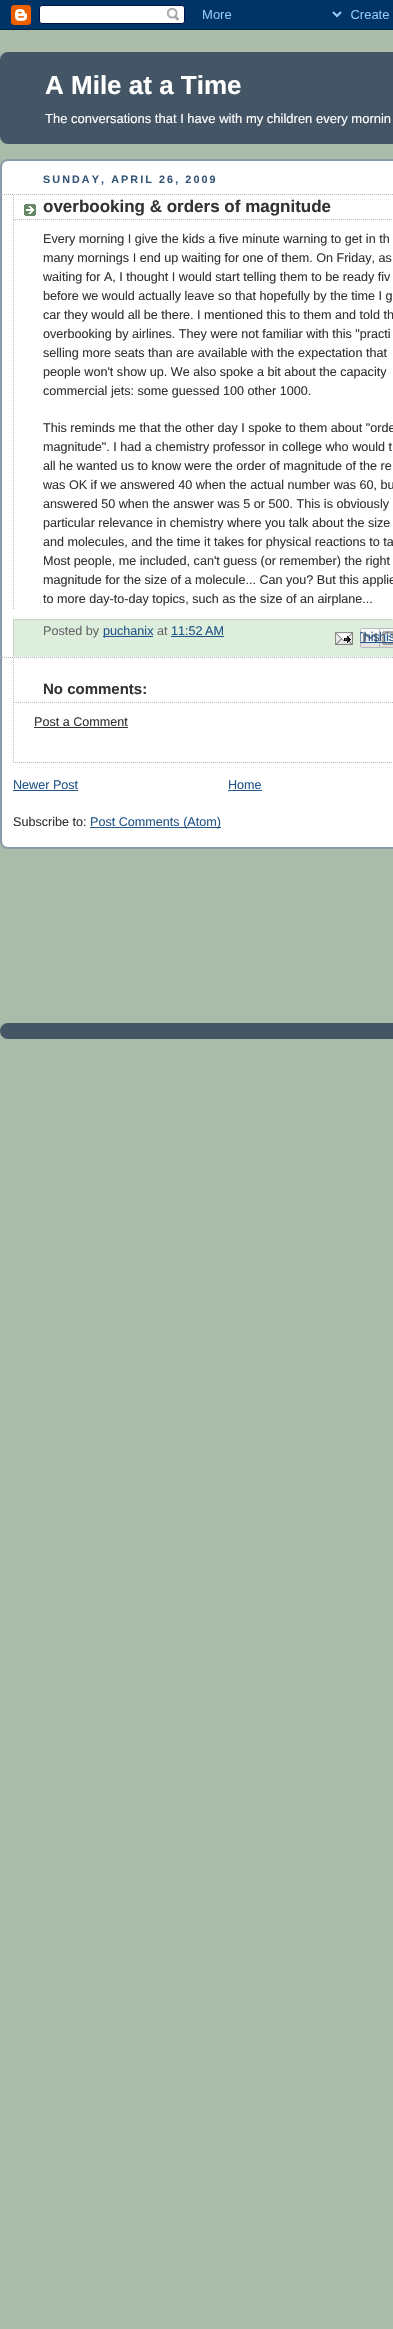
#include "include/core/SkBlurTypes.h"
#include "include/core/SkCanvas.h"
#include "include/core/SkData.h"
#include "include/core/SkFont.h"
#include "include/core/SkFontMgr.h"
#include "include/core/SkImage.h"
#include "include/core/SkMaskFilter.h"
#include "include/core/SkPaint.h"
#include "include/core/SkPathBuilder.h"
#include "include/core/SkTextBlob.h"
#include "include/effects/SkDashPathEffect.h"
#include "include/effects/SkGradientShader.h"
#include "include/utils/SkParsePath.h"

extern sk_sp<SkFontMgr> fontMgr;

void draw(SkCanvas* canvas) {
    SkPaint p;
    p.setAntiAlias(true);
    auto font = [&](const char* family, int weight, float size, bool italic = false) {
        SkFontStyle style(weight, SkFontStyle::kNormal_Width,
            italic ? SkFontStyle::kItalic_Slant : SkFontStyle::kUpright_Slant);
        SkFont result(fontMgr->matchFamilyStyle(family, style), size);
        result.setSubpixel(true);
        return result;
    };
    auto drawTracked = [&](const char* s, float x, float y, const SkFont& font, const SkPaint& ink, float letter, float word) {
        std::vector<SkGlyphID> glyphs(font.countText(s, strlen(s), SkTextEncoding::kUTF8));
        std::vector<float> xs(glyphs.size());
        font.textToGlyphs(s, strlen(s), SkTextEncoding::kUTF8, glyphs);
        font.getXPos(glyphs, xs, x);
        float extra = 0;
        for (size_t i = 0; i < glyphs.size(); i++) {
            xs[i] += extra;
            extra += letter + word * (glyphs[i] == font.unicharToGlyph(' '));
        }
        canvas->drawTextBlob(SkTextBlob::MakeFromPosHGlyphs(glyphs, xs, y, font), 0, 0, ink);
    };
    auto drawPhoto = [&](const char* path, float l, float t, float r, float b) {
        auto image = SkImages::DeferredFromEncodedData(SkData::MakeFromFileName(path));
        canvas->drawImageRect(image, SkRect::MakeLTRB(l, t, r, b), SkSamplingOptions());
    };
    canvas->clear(0xFFAABBAA);
    drawPhoto("media/1.png", 0, 0, 393, 30);
    p.setColor(0xFF445566);
    canvas->drawRect(SkRect::MakeLTRB(0, 52, 393, 144), p);
    drawPhoto("media/2.png", 0, 52, 8, 60);
    drawPhoto("media/3.png", 0, 136, 8, 144);
    auto font1 = font("Liberation Sans", 700, 26);
    p.setColor(0xFFFFFFFF);
    canvas->drawString("A Mile at a Time", 45, 94, font1, p);
    auto font2 = font("Liberation Sans", 400, 13);
    canvas->drawString("The conversations that I have with my children every mornin", 45, 123, font2, p);
    canvas->drawRect(SkRect::MakeLTRB(2, 161, 393, 847), p);
    drawPhoto("media/4.png", 0, 799, 393, 849);
    drawPhoto("media/5.png", 0, 159, 393, 209);
    p.setColor(0xFF8899AA);
    canvas->drawRect(SkRect::MakeLTRB(0, 209, 2, 799), p);
    auto font3 = font("Liberation Sans", 700, 10.75f);
    p.setColor(0xFF335577);
    drawTracked("SUNDAY, APRIL 26, 2009", 43, 183, font3, p, 2.1f, 0);
    p.setStyle(SkPaint::kStroke_Style);
    p.setStrokeWidth(1);
    p.setColor(0xFFBBBBBB);
    p.setPathEffect(SkDashPathEffect::Make({{1, 1}}, 0));
    canvas->drawPath(SkPathBuilder().moveTo(0, 194.5f).lineTo(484, 194.5f).detach(), p);
    p.setPathEffect(nullptr);
    p.setPathEffect(SkDashPathEffect::Make({{1, 1}}, 0));
    canvas->drawPath(SkPathBuilder().moveTo(0, 657.5f).lineTo(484, 657.5f).detach(), p);
    p.setPathEffect(nullptr);
    drawPhoto("media/6.png", 24, 204, 36, 216);
    p.setPathEffect(SkDashPathEffect::Make({{1, 1}}, 0));
    canvas->drawPath(SkPathBuilder().moveTo(13, 219.5f).lineTo(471, 219.5f).detach(), p);
    p.setPathEffect(nullptr);
    p.setPathEffect(SkDashPathEffect::Make({{1, 1}}, 0));
    canvas->drawPath(SkPathBuilder().moveTo(13.5f, 195).lineTo(13.5f, 220).detach(), p);
    p.setPathEffect(nullptr);
    auto font4 = font("Liberation Sans", 700, 17);
    p.setStyle(SkPaint::kFill_Style);
    p.setColor(0xFF333333);
    canvas->drawString("overbooking & orders of magnitude", 43, 212, font4, p);
    p.setStyle(SkPaint::kStroke_Style);
    p.setColor(0xFFBBBBBB);
    p.setPathEffect(SkDashPathEffect::Make({{1, 1}}, 0));
    canvas->drawPath(SkPathBuilder().moveTo(13.5f, 220).lineTo(13.5f, 610).detach(), p);
    p.setPathEffect(nullptr);
    auto font5 = font("Liberation Sans", 400, 12.6f);
    p.setStyle(SkPaint::kFill_Style);
    p.setColor(0xFF333333);
    {
        const struct { const char* s; float x, y; } items[] = {
            {"Every morning I give the kids a five minute warning to get in th", 43, 243},
            {"many mornings I end up waiting for one of them. On Friday, as", 43, 262},
            {"waiting for A, I thought I would start telling them to be ready fiv", 43, 281},
            {"before we would actually leave so that hopefully by the time I g", 43, 300},
            {"car they would all be there. I mentioned this to them and told th", 43, 319},
            {"overbooking by airlines. They were not familiar with this \"practi", 43, 338},
            {"selling more seats than are available with the expectation that", 43, 357},
            {"people won't show up. We also spoke a bit about the capacity", 43, 376},
            {"commercial jets: some guessed 100 other 1000.", 43, 395},
            {"This reminds me that the other day I spoke to them about \"orde", 43, 432},
            {"magnitude\". I had a chemistry professor in college who would t", 43, 451},
            {"all he wanted us to know were the order of magnitude of the re", 43, 470},
            {"was OK if we answered 40 when the actual number was 60, bu", 43, 489},
            {"answered 50 when the answer was 5 or 500. This is obviously", 43, 508},
            {"particular relevance in chemistry where you talk about the size", 43, 527},
            {"and molecules, and the time it takes for physical reactions to ta", 43, 546},
            {"Most people, me included, can't guess (or remember) the right", 43, 565},
            {"magnitude for the size of a molecule... Can you? But this applie", 43, 584},
            {"to more day-to-day topics, such as the size of an airplane...", 43, 603},
        };
        for (auto [s, x, y] : items) {
            canvas->drawString(s, x, y, font5, p);
        }
    }
    p.setColor(0xFFDDEEDD);
    canvas->drawRect(SkRect::MakeLTRB(13, 619, 393, 657), p);
    p.setStyle(SkPaint::kStroke_Style);
    p.setColor(0xFFBBBBBB);
    p.setPathEffect(SkDashPathEffect::Make({{1, 1}}, 0));
    canvas->drawPath(SkPathBuilder().moveTo(13, 619.5f).lineTo(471, 619.5f).detach(), p);
    p.setPathEffect(nullptr);
    p.setPathEffect(SkDashPathEffect::Make({{1, 1}}, 0));
    canvas->drawPath(SkPathBuilder().moveTo(13.5f, 619).lineTo(13.5f, 657).detach(), p);
    p.setPathEffect(nullptr);
    p.setStyle(SkPaint::kFill_Style);
    p.setColor(0xFF666666);
    canvas->drawString("Posted by", 43, 635, font5, p);
    p.setColor(0xFF225588);
    canvas->drawRect(SkRect::MakeLTRB(103, 636, 153, 637), p);
    canvas->drawString("puchanix", 103, 635, font5, p);
    p.setColor(0xFF666666);
    canvas->drawString("at", 157, 635, font5, p);
    p.setColor(0xFF225588);
    canvas->drawString("11:52 AM", 171, 635, font5, p);
    canvas->drawRect(SkRect::MakeLTRB(171, 636, 224, 637), p);
    drawPhoto("media/7.png", 335, 632, 353, 645);
    drawPhoto("media/8.png", 360, 628, 379, 648);
    canvas->save();
    canvas->clipRect(SkRect::MakeLTRB(360, 628, 380, 648));
    canvas->drawString("This", 356, 641, font5, p);
    canvas->restore();
    canvas->drawRect(SkRect::MakeLTRB(360, 642, 380, 643), p);
    drawPhoto("media/9.png", 379, 628, 393, 648);
    canvas->drawString("his", 379, 641, font5, p);
    canvas->drawRect(SkRect::MakeLTRB(379, 642, 393, 643), p);
    p.setStyle(SkPaint::kStroke_Style);
    p.setColor(0xFFBBBBBB);
    p.setPathEffect(SkDashPathEffect::Make({{1, 1}}, 0));
    canvas->drawPath(SkPathBuilder().moveTo(13, 762.5f).lineTo(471, 762.5f).detach(), p);
    p.setPathEffect(nullptr);
    p.setPathEffect(SkDashPathEffect::Make({{1, 1}}, 0));
    canvas->drawPath(SkPathBuilder().moveTo(13.5f, 658).lineTo(13.5f, 763).detach(), p);
    p.setPathEffect(nullptr);
    p.setPathEffect(SkDashPathEffect::Make({{1, 1}}, 0));
    canvas->drawPath(SkPathBuilder().moveTo(14, 702.5f).lineTo(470, 702.5f).detach(), p);
    p.setPathEffect(nullptr);
    auto font6 = font("Liberation Sans", 700, 15);
    p.setStyle(SkPaint::kFill_Style);
    p.setColor(0xFF333333);
    canvas->drawString("No comments:", 43, 694, font6, p);
    canvas->drawString("Post a Comment", 34, 726, font5, p);
    canvas->drawRect(SkRect::MakeLTRB(34, 727, 128, 728), p);
    p.setColor(0xFF225588);
    canvas->drawString("Newer Post", 13, 789, font5, p);
    canvas->drawRect(SkRect::MakeLTRB(13, 790, 78, 791), p);
    canvas->drawString("Home", 228, 789, font5, p);
    canvas->drawRect(SkRect::MakeLTRB(228, 790, 262, 791), p);
    p.setColor(0xFF333333);
    canvas->drawString("Subscribe to:", 13, 826, font5, p);
    p.setColor(0xFF225588);
    canvas->drawRect(SkRect::MakeLTRB(90, 827, 221, 828), p);
    canvas->drawString("Post Comments (Atom)", 90, 826, font5, p);
    p.setColor(0xFF445566);
    canvas->drawRect(SkRect::MakeLTRB(1, 1023, 393, 1039), p);
    drawPhoto("media/2.png", 0, 1023, 8, 1031);
    drawPhoto("media/3.png", 0, 1031, 8, 1039);
}
